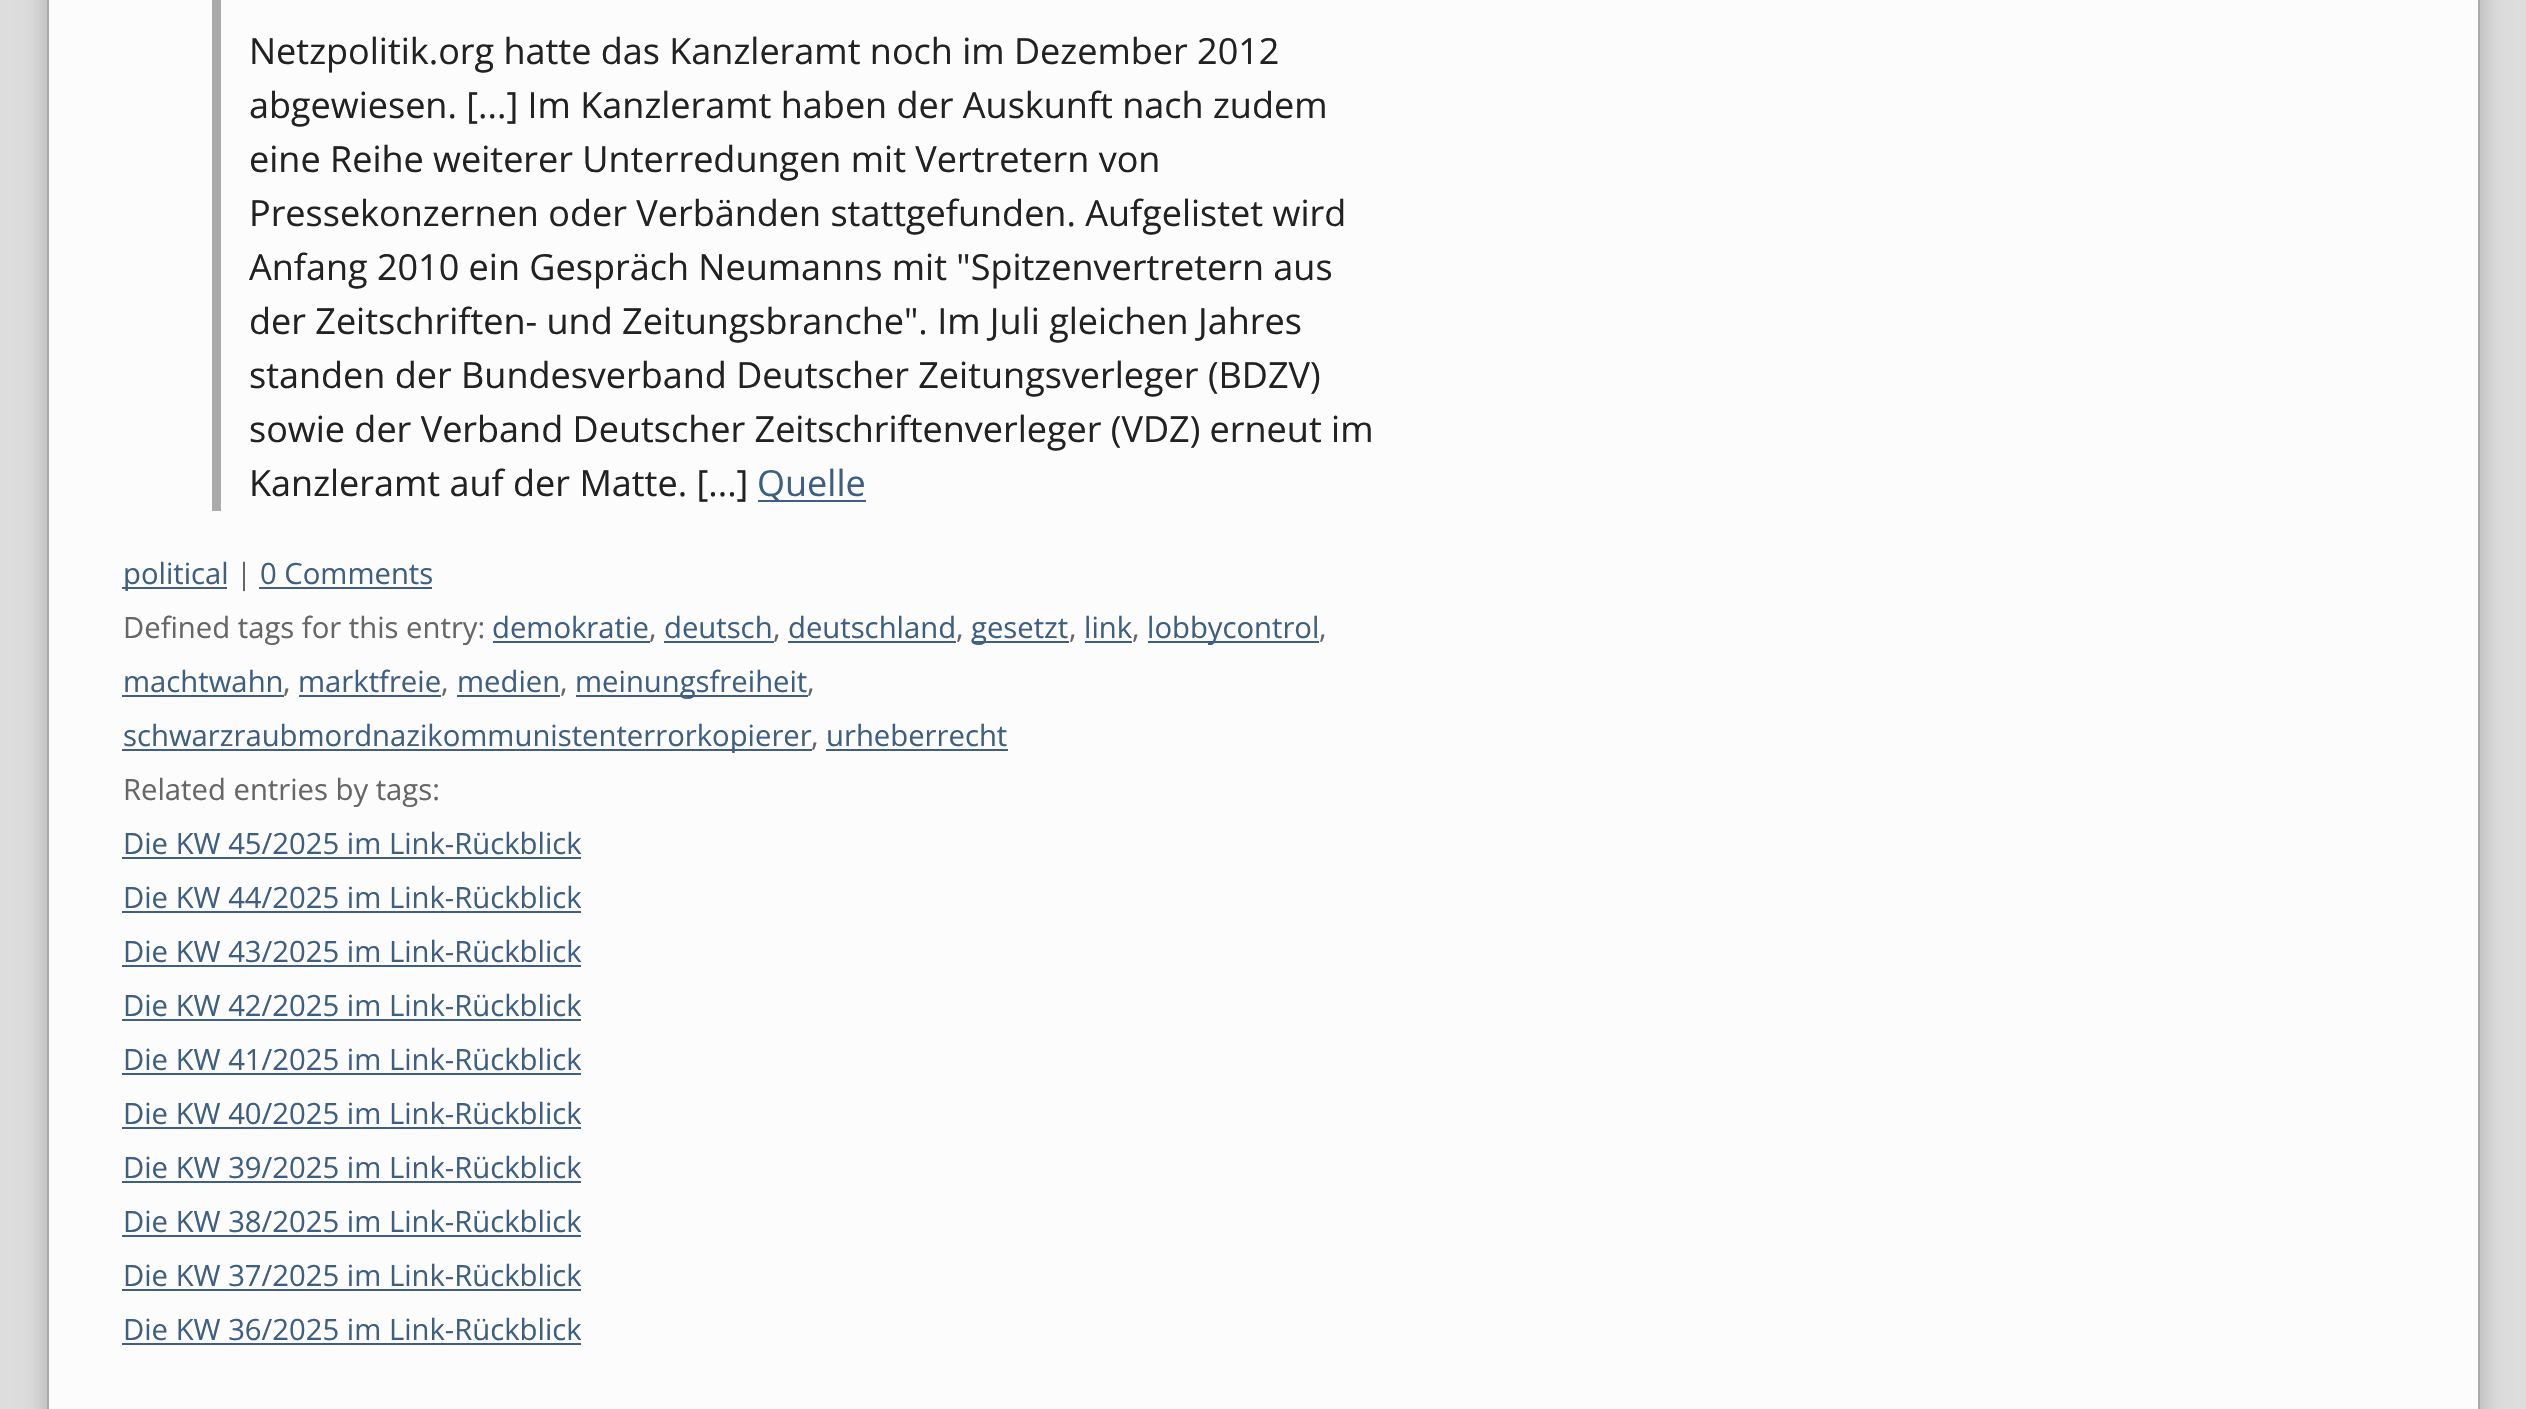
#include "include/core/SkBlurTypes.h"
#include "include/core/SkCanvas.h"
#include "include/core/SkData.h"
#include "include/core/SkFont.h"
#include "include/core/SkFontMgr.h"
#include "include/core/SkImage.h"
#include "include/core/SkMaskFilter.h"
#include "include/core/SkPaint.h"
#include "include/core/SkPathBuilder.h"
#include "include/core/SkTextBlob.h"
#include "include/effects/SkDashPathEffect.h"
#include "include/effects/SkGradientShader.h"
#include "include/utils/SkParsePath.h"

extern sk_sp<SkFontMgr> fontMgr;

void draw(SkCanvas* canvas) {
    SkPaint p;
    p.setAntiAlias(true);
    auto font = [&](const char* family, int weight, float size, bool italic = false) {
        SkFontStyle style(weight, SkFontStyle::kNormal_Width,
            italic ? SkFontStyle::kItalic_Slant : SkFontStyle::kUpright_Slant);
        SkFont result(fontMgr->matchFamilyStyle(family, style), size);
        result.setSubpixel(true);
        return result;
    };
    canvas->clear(0xFFDDDDDD);
    p.setColor(0x33000000);
    p.setMaskFilter(SkMaskFilter::MakeBlur(kNormal_SkBlurStyle, 11));
    canvas->drawRect(SkRect::MakeLTRB(45, -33, 2482, 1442), p);
    p.setMaskFilter(nullptr);
    p.setColor(0xFFFCFCFC);
    canvas->drawRect(SkRect::MakeLTRB(48, -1, 2479, 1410), p);
    p.setStyle(SkPaint::kStroke_Style);
    p.setStrokeWidth(2);
    p.setColor(0xFFAAAAAA);
    canvas->drawRect(SkRect::MakeLTRB(48, -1, 2479, 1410), p);
    p.setStyle(SkPaint::kFill_Style);
    canvas->drawRect(SkRect::MakeLTRB(212, 0, 221, 511), p);
    auto font1 = font("Open Sans", 400, 36);
    p.setColor(0xFF222222);
    {
        const struct { const char* s; float x, y; } items[] = {
            {"Netzpolitik.org hatte das Kanzleramt noch im Dezember 2012", 249, 64},
            {"abgewiesen. [...] Im Kanzleramt haben der Auskunft nach zudem", 249, 118},
            {"eine Reihe weiterer Unterredungen mit Vertretern von", 249, 172},
            {"Pressekonzernen oder Verbänden stattgefunden. Aufgelistet wird", 249, 226},
            {"Anfang 2010 ein Gespräch Neumanns mit \"Spitzenvertretern aus", 249, 280},
            {"der Zeitschriften- und Zeitungsbranche\". Im Juli gleichen Jahres", 249, 334},
            {"standen der Bundesverband Deutscher Zeitungsverleger (BDZV)", 249, 388},
            {"sowie der Verband Deutscher Zeitschriftenverleger (VDZ) erneut im", 249, 442},
            {"Kanzleramt auf der Matte. [...]", 249, 496},
        };
        for (auto [s, x, y] : items) {
            canvas->drawString(s, x, y, font1, p);
        }
    }
    p.setColor(0xFF3E5F81);
    canvas->drawRect(SkRect::MakeLTRB(758, 500, 866, 502), p);
    canvas->drawString("Quelle", 757, 496, font1, p);
    canvas->drawRect(SkRect::MakeLTRB(122, 587, 227, 589), p);
    auto font2 = font("Open Sans", 400, 29.25f);
    canvas->drawString("political", 123, 584, font2, p);
    p.setColor(0xFF666666);
    canvas->drawString("|", 236, 584, font2, p);
    p.setColor(0xFF3E5F81);
    canvas->drawString("0 Comments", 260, 584, font2, p);
    canvas->drawRect(SkRect::MakeLTRB(259, 587, 432, 589), p);
    p.setColor(0xFF666666);
    canvas->drawString("Defined tags for this entry:", 123, 638, font2, p);
    p.setColor(0xFF3E5F81);
    canvas->drawString("demokratie", 492, 638, font2, p);
    canvas->drawRect(SkRect::MakeLTRB(493, 641, 650, 643), p);
    p.setColor(0xFF666666);
    canvas->drawString(",", 649, 638, font2, p);
    p.setColor(0xFF3E5F81);
    canvas->drawString("deutsch", 664, 638, font2, p);
    canvas->drawRect(SkRect::MakeLTRB(664, 641, 774, 643), p);
    p.setColor(0xFF666666);
    canvas->drawString(",", 773, 638, font2, p);
    p.setColor(0xFF3E5F81);
    canvas->drawString("deutschland", 788, 638, font2, p);
    canvas->drawRect(SkRect::MakeLTRB(788, 641, 956, 643), p);
    p.setColor(0xFF666666);
    canvas->drawString(",", 956, 638, font2, p);
    p.setColor(0xFF3E5F81);
    canvas->drawRect(SkRect::MakeLTRB(972, 641, 1069, 643), p);
    canvas->drawString("gesetzt", 971, 638, font2, p);
    p.setColor(0xFF666666);
    canvas->drawString(",", 1069, 638, font2, p);
    p.setColor(0xFF3E5F81);
    canvas->drawString("link", 1084, 638, font2, p);
    canvas->drawRect(SkRect::MakeLTRB(1085, 641, 1132, 643), p);
    p.setColor(0xFF666666);
    canvas->drawString(",", 1132, 638, font2, p);
    p.setColor(0xFF3E5F81);
    canvas->drawRect(SkRect::MakeLTRB(1148, 641, 1319, 643), p);
    canvas->drawString("lobbycontrol", 1147, 638, font2, p);
    p.setColor(0xFF666666);
    canvas->drawString(",", 1319, 638, font2, p);
    p.setColor(0xFF3E5F81);
    canvas->drawString("machtwahn", 123, 692, font2, p);
    canvas->drawRect(SkRect::MakeLTRB(122, 695, 284, 697), p);
    p.setColor(0xFF666666);
    canvas->drawString(",", 283, 692, font2, p);
    p.setColor(0xFF3E5F81);
    canvas->drawString("marktfreie", 298, 692, font2, p);
    canvas->drawRect(SkRect::MakeLTRB(299, 695, 441, 697), p);
    p.setColor(0xFF666666);
    canvas->drawString(",", 441, 692, font2, p);
    p.setColor(0xFF3E5F81);
    canvas->drawString("medien", 457, 692, font2, p);
    canvas->drawRect(SkRect::MakeLTRB(457, 695, 560, 697), p);
    p.setColor(0xFF666666);
    canvas->drawString(",", 560, 692, font2, p);
    p.setColor(0xFF3E5F81);
    canvas->drawRect(SkRect::MakeLTRB(576, 695, 808, 697), p);
    canvas->drawString("meinungsfreiheit", 575, 692, font2, p);
    p.setColor(0xFF666666);
    canvas->drawString(",", 807, 692, font2, p);
    p.setColor(0xFF3E5F81);
    canvas->drawRect(SkRect::MakeLTRB(122, 749, 812, 751), p);
    canvas->drawString("schwarzraubmordnazikommunistenterrorkopierer", 123, 746, font2, p);
    p.setColor(0xFF666666);
    canvas->drawString(",", 811, 746, font2, p);
    p.setColor(0xFF3E5F81);
    canvas->drawString("urheberrecht", 826, 746, font2, p);
    canvas->drawRect(SkRect::MakeLTRB(826, 749, 1008, 751), p);
    p.setColor(0xFF666666);
    canvas->drawString("Related entries by tags:", 123, 800, font2, p);
    p.setColor(0xFF3E5F81);
    canvas->drawString("Die KW 45/2025 im Link-Rückblick", 123, 854, font2, p);
    canvas->drawRect(SkRect::MakeLTRB(122, 857, 581, 859), p);
    canvas->drawString("Die KW 44/2025 im Link-Rückblick", 123, 908, font2, p);
    canvas->drawRect(SkRect::MakeLTRB(122, 911, 581, 913), p);
    canvas->drawString("Die KW 43/2025 im Link-Rückblick", 123, 962, font2, p);
    canvas->drawRect(SkRect::MakeLTRB(122, 965, 581, 967), p);
    canvas->drawString("Die KW 42/2025 im Link-Rückblick", 123, 1016, font2, p);
    canvas->drawRect(SkRect::MakeLTRB(122, 1019, 581, 1021), p);
    canvas->drawString("Die KW 41/2025 im Link-Rückblick", 123, 1070, font2, p);
    canvas->drawRect(SkRect::MakeLTRB(122, 1073, 581, 1075), p);
    canvas->drawString("Die KW 40/2025 im Link-Rückblick", 123, 1124, font2, p);
    canvas->drawRect(SkRect::MakeLTRB(122, 1127, 581, 1129), p);
    canvas->drawString("Die KW 39/2025 im Link-Rückblick", 123, 1178, font2, p);
    canvas->drawRect(SkRect::MakeLTRB(122, 1181, 581, 1183), p);
    canvas->drawString("Die KW 38/2025 im Link-Rückblick", 123, 1232, font2, p);
    canvas->drawRect(SkRect::MakeLTRB(122, 1235, 581, 1237), p);
    canvas->drawString("Die KW 37/2025 im Link-Rückblick", 123, 1286, font2, p);
    canvas->drawRect(SkRect::MakeLTRB(122, 1289, 581, 1291), p);
    canvas->drawString("Die KW 36/2025 im Link-Rückblick", 123, 1340, font2, p);
    canvas->drawRect(SkRect::MakeLTRB(122, 1343, 581, 1345), p);
}
